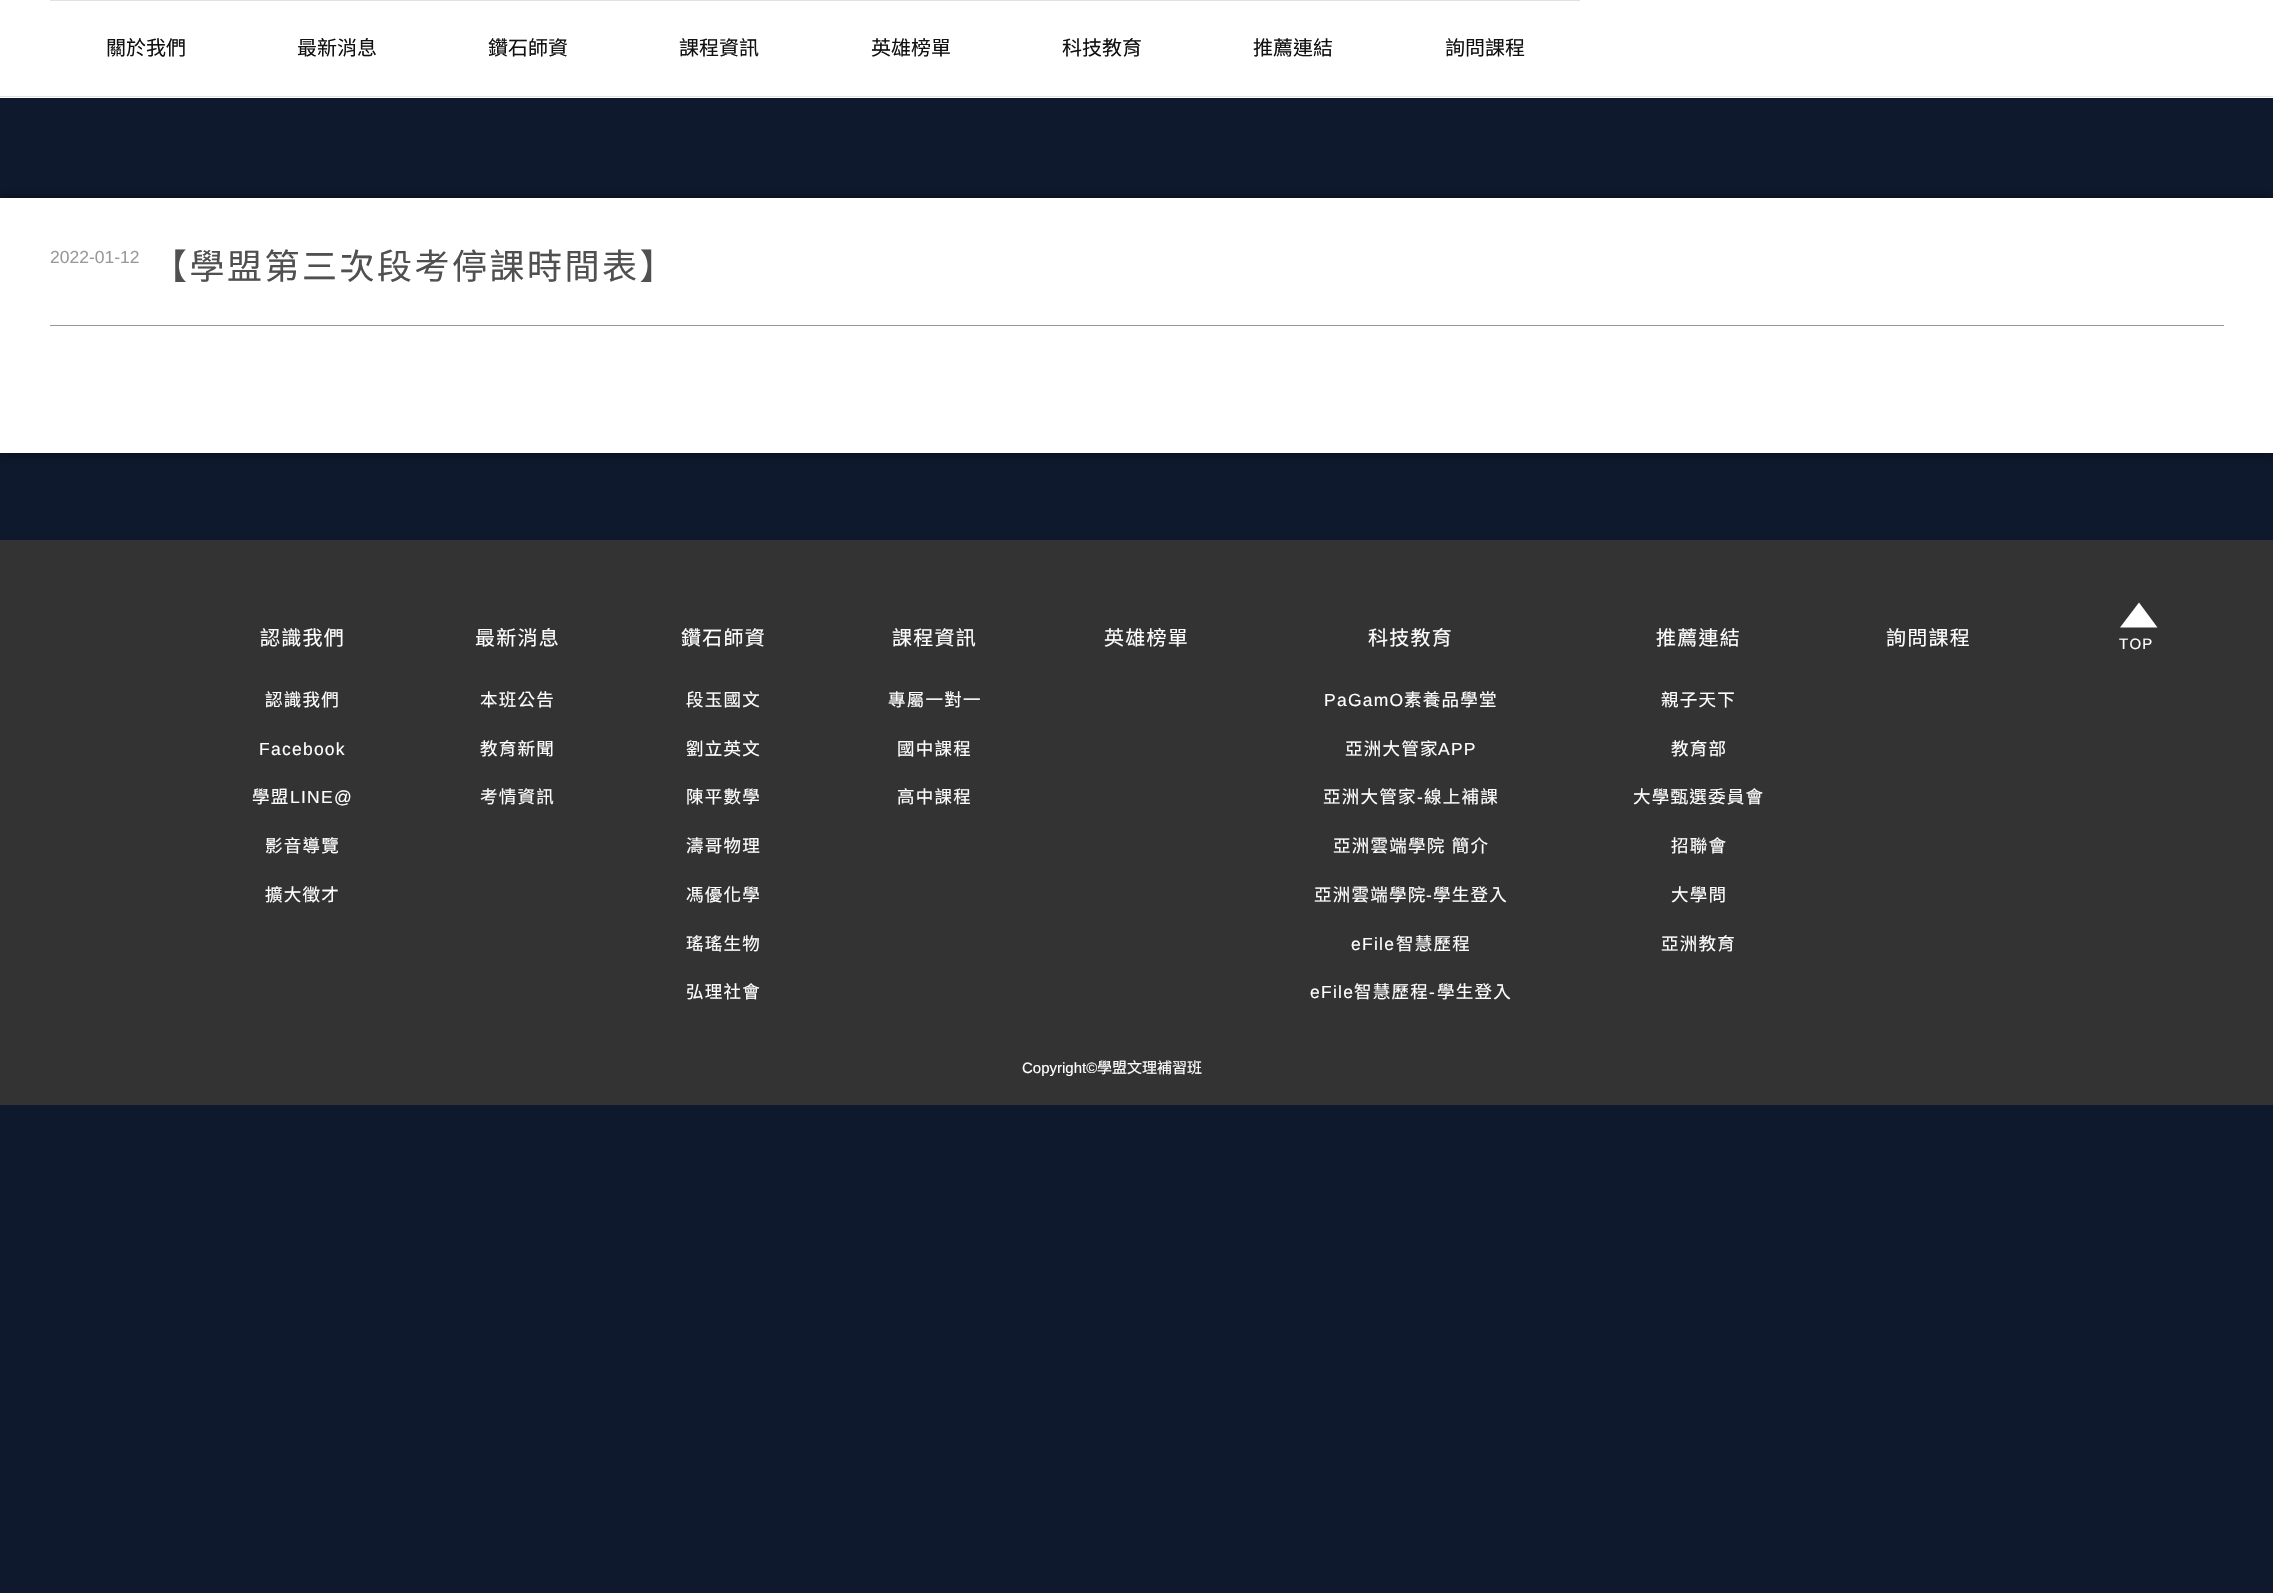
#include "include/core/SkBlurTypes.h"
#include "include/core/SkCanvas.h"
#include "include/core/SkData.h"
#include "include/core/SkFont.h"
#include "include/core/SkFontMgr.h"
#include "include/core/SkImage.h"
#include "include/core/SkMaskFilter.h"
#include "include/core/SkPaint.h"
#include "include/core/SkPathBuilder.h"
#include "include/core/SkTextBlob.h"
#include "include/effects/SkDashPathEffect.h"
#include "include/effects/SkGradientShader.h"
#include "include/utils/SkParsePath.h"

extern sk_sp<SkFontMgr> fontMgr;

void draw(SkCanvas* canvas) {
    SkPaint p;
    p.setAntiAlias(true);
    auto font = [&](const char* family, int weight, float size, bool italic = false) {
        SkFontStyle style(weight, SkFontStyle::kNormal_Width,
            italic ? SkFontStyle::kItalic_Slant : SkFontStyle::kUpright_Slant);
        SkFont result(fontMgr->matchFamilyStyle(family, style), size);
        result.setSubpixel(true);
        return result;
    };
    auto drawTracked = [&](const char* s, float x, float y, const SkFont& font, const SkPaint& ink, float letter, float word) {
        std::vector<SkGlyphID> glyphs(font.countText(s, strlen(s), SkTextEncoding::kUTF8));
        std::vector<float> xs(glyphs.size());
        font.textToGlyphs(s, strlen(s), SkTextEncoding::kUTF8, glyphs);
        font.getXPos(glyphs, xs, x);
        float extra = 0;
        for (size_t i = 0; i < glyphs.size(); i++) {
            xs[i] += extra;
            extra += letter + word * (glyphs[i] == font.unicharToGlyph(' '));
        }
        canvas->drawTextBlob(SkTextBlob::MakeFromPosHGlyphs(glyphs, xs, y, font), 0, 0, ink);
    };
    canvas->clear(0xFF0E192D);
    {
        const struct { float l, t, r, b; SkColor color; } items[] = {
            {0, 0, 2273, 98, 0xFFFFFFFF},
            {0, 96, 2273, 97, 0xFFE1E1E5},
            {50, 0, 1580, 1, 0xFFE1E1E5},
        };
        for (auto [l, t, r, b, color] : items) {
            p.setColor(color);
            canvas->drawRect(SkRect::MakeLTRB(l, t, r, b), p);
        }
    }
    auto font1 = font("Noto Sans CJK TC", 400, 20);
    p.setColor(0xFF111111);
    {
        const struct { const char* s; float x, y; } items[] = {
            {"關於我們", 106, 55},
            {"最新消息", 297, 55},
            {"鑽石師資", 488, 55},
            {"課程資訊", 679, 55},
            {"英雄榜單", 871, 55},
            {"科技教育", 1062, 55},
            {"推薦連結", 1253, 55},
            {"詢問課程", 1445, 55},
        };
        for (auto [s, x, y] : items) {
            canvas->drawString(s, x, y, font1, p);
        }
    }
    p.setColor(0x80000000);
    p.setMaskFilter(SkMaskFilter::MakeBlur(kNormal_SkBlurStyle, 6));
    canvas->drawRect(SkRect::MakeLTRB(0, 198, 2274, 453), p);
    p.setMaskFilter(nullptr);
    p.setColor(0xFFFFFFFF);
    canvas->drawRect(SkRect::MakeLTRB(0, 198, 2273, 453), p);
    p.setColor(0xFF969696);
    canvas->drawRect(SkRect::MakeLTRB(50, 325, 2224, 326), p);
    auto font2 = font("Liberation Sans", 400, 17.5f);
    p.setColor(0xFF999999);
    canvas->drawString("2022-01-12", 50, 263, font2, p);
    auto font3 = font("Noto Sans CJK TC", 400, 35);
    p.setColor(0xFF505050);
    drawTracked("【學盟第三次段考停課時間表】", 152, 279, font3, p, 2.5f, 0);
    p.setColor(0xFF333333);
    canvas->drawRect(SkRect::MakeLTRB(0, 540, 2273, 1105), p);
    p.setColor(0xFFFFFFFF);
    drawTracked("認識我們", 260, 645, font1, p, 1.25f, 0);
    auto font4 = font("Noto Sans CJK TC", 400, 17.5f);
    drawTracked("認識我們", 265, 706, font4, p, 1.25f, 0);
    drawTracked("Facebook", 259, 755, font2, p, 1.25f, 0);
    drawTracked("學盟", 252, 803, font4, p, 1.25f, 0);
    drawTracked("LINE@", 290, 803, font2, p, 1.25f, 0);
    drawTracked("影音導覽", 265, 852, font4, p, 1.25f, 0);
    drawTracked("擴大徵才", 265, 901, font4, p, 1.25f, 0);
    drawTracked("最新消息", 475, 645, font1, p, 1.25f, 0);
    {
        const struct { const char* s; float x, y; } items[] = {
            {"本班公告", 480, 706},
            {"教育新聞", 480, 755},
            {"考情資訊", 480, 803},
        };
        for (auto [s, x, y] : items) {
            drawTracked(s, x, y, font4, p, 1.25f, 0);
        }
    }
    drawTracked("鑽石師資", 681, 645, font1, p, 1.25f, 0);
    {
        const struct { const char* s; float x, y; } items[] = {
            {"段玉國文", 686, 706},
            {"劉立英文", 686, 755},
            {"陳平數學", 686, 803},
            {"濤哥物理", 686, 852},
            {"馮優化學", 686, 901},
            {"瑤瑤生物", 686, 950},
            {"弘理社會", 686, 998},
        };
        for (auto [s, x, y] : items) {
            drawTracked(s, x, y, font4, p, 1.25f, 0);
        }
    }
    drawTracked("課程資訊", 892, 645, font1, p, 1.25f, 0);
    {
        const struct { const char* s; float x, y; } items[] = {
            {"專屬一對一", 888, 706},
            {"國中課程", 897, 755},
            {"高中課程", 897, 803},
        };
        for (auto [s, x, y] : items) {
            drawTracked(s, x, y, font4, p, 1.25f, 0);
        }
    }
    drawTracked("英雄榜單", 1104, 645, font1, p, 1.25f, 0);
    drawTracked("科技教育", 1368, 645, font1, p, 1.25f, 0);
    drawTracked("PaGamO", 1324, 706, font2, p, 1.25f, 0);
    drawTracked("素養品學堂", 1404, 706, font4, p, 1.25f, 0);
    drawTracked("亞洲大管家", 1345, 755, font4, p, 1.25f, 0);
    drawTracked("APP", 1438, 755, font2, p, 1.25f, 0);
    drawTracked("亞洲大管家", 1323, 803, font4, p, 1.25f, 0);
    drawTracked("-", 1417, 803, font2, p, 1.25f, 0);
    drawTracked("線上補課", 1424, 803, font4, p, 1.25f, 0);
    drawTracked("亞洲雲端學院 簡介", 1333, 852, font4, p, 1.25f, 1);
    drawTracked("亞洲雲端學院", 1314, 901, font4, p, 1.25f, 0);
    drawTracked("-", 1426, 901, font2, p, 1.25f, 0);
    drawTracked("學生登入", 1433, 901, font4, p, 1.25f, 0);
    drawTracked("eFile", 1351, 950, font2, p, 1.25f, 0);
    drawTracked("智慧歷程", 1396, 950, font4, p, 1.25f, 0);
    drawTracked("eFile", 1310, 998, font2, p, 1.25f, 0);
    drawTracked("智慧歷程", 1354, 998, font4, p, 1.25f, 0);
    drawTracked("-", 1429, 998, font2, p, 1.25f, 0);
    drawTracked("學生登入", 1437, 998, font4, p, 1.25f, 0);
    drawTracked("推薦連結", 1656, 645, font1, p, 1.25f, 0);
    {
        const struct { const char* s; float x, y; } items[] = {
            {"親子天下", 1661, 706},
            {"教育部", 1671, 755},
            {"大學甄選委員會", 1633, 803},
            {"招聯會", 1671, 852},
            {"大學問", 1671, 901},
            {"亞洲教育", 1661, 950},
        };
        for (auto [s, x, y] : items) {
            drawTracked(s, x, y, font4, p, 1.25f, 0);
        }
    }
    drawTracked("詢問課程", 1886, 645, font1, p, 1.25f, 0);
    canvas->drawPath(SkPathBuilder().moveTo(2157.5f, 627.5f).lineTo(2120, 627.5f).lineTo(2139, 602.5f).close().detach(), p);
    auto font5 = font("Liberation Sans", 400, 15);
    drawTracked("TOP", 2119, 649, font5, p, 1.25f, 0);
    canvas->drawString("Copyright©", 1022, 1073, font5, p);
    auto font6 = font("Noto Sans CJK TC", 400, 15);
    canvas->drawString("學盟文理補習班", 1097, 1073, font6, p);
}
